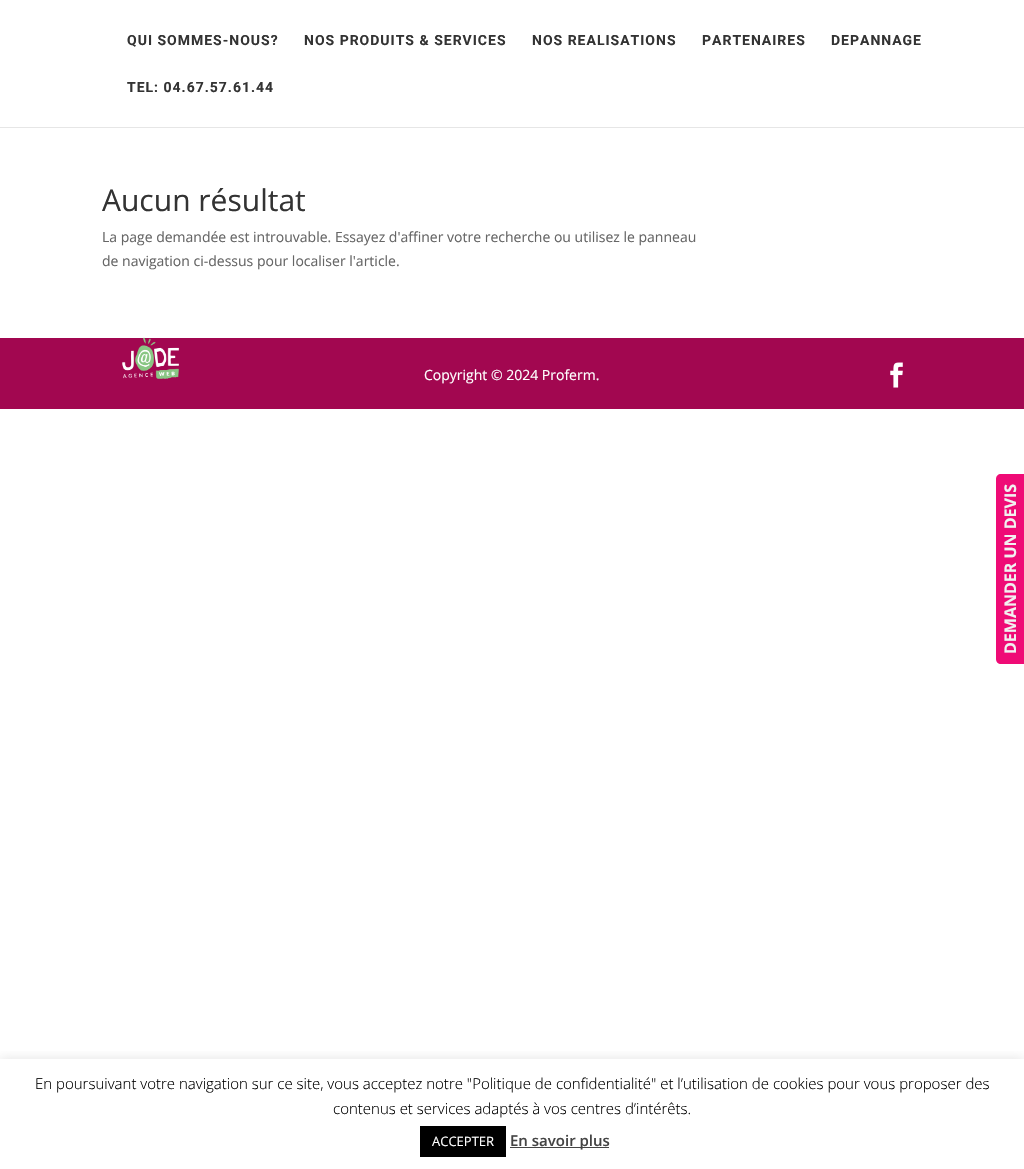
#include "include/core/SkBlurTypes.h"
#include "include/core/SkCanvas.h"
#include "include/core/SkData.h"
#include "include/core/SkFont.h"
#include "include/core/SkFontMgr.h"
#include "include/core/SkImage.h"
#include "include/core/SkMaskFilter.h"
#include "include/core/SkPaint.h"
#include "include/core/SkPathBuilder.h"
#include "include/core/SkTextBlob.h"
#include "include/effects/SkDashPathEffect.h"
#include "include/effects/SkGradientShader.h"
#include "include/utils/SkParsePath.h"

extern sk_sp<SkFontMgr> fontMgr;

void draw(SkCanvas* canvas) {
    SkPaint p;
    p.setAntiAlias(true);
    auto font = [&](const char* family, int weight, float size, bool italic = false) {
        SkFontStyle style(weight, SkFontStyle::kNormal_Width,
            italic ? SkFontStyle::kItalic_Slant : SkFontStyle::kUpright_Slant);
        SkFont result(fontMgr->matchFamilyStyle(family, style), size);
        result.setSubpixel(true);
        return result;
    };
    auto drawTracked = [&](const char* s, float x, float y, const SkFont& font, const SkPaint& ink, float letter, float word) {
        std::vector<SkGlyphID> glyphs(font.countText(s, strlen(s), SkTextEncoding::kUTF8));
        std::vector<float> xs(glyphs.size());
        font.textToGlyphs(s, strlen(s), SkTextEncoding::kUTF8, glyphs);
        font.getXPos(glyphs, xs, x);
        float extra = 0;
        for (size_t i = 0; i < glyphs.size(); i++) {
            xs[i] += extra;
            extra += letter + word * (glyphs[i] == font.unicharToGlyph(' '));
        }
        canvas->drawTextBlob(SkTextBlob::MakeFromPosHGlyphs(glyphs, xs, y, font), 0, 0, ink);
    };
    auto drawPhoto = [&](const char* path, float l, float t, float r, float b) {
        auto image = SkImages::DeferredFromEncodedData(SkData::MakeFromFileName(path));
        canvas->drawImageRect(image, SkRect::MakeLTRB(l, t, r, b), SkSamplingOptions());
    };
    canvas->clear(0xFFFFFFFF);
    p.setColor(0xFFE6E6E6);
    canvas->drawRect(SkRect::MakeLTRB(0, 127, 1024, 128), p);
    auto font1 = font("Roboto", 700, 14);
    p.setColor(0xFF333333);
    {
        const struct { const char* s; float x, y; } items[] = {
            {"QUI SOMMES-NOUS?", 127, 45},
            {"NOS PRODUITS & SERVICES", 304, 45},
            {"NOS REALISATIONS", 532, 45},
            {"PARTENAIRES", 702, 45},
            {"DEPANNAGE", 831, 45},
            {"TEL: 04.67.57.61.44", 127, 92},
        };
        for (auto [s, x, y] : items) {
            drawTracked(s, x, y, font1, p, 1, 0);
        }
    }
    auto font2 = font("Open Sans", 400, 30);
    canvas->drawString("Aucun résultat", 102, 211, font2, p);
    auto font3 = font("Open Sans", 400, 14);
    p.setColor(0xFF666666);
    canvas->drawString("La page demandée est introuvable. Essayez d'affiner votre recherche ou utilisez le panneau", 102, 242, font3, p);
    canvas->drawString("de navigation ci-dessus pour localiser l'article.", 102, 266, font3, p);
    p.setColor(0xFFA20750);
    canvas->drawRect(SkRect::MakeLTRB(0, 338, 1024, 409), p);
    drawPhoto("media/1.png", 122, 337, 179, 379);
    p.setColor(0xFFFFFFFF);
    canvas->drawString("Copyright © 2024 Proferm.", 424, 380, font3, p);
    drawPhoto("media/2.png", 890, 362, 903, 388);
    p.setColor(0xFFEF0B76);
    canvas->drawPath(SkPathBuilder().moveTo(996, 659).lineTo(996, 479).cubicTo(996, 476, 998, 474, 1001, 474).lineTo(1024, 474).lineTo(1024, 664).lineTo(1001, 664).cubicTo(998, 664, 996, 662, 996, 659).close().detach(), p);
    auto font4 = font("Open Sans", 700, 16);
    p.setColor(0xFFF1F1F1);
    canvas->save();
    canvas->rotate(-90, 1016, 654);
    canvas->drawString("DEMANDER UN DEVIS", 1016, 654, font4, p);
    canvas->restore();
    canvas->save();
    canvas->clipRect(SkRect::MakeLTRB(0, 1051, 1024, 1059));
    p.setColor(0x4DACABAB);
    p.setMaskFilter(SkMaskFilter::MakeBlur(kNormal_SkBlurStyle, 5));
    canvas->drawRect(SkRect::MakeLTRB(0, 1058, 1024, 1168), p);
    p.setMaskFilter(nullptr);
    canvas->restore();
    auto font5 = font("Open Sans", 300, 15);
    p.setColor(0xFF000000);
    canvas->drawString("En poursuivant votre navigation sur ce site, vous acceptez notre \"Politique de confidentialité\" et l’utilisation de cookies pour vous proposer des", 35, 1089, font5, p);
    canvas->drawString("contenus et services adaptés à vos centres d’intérêts.", 333, 1114, font5, p);
    canvas->drawRect(SkRect::MakeLTRB(420, 1126, 506, 1157), p);
    auto font6 = font("Open Sans", 400, 13);
    p.setColor(0xFFFFFFFF);
    canvas->drawString("ACCEPTER", 432, 1146, font6, p);
    p.setColor(0xFF444444);
    canvas->drawRect(SkRect::MakeLTRB(510, 1147, 609, 1148), p);
    auto font7 = font("Open Sans", 600, 15);
    canvas->drawString("En savoir plus", 510, 1146, font7, p);
}
